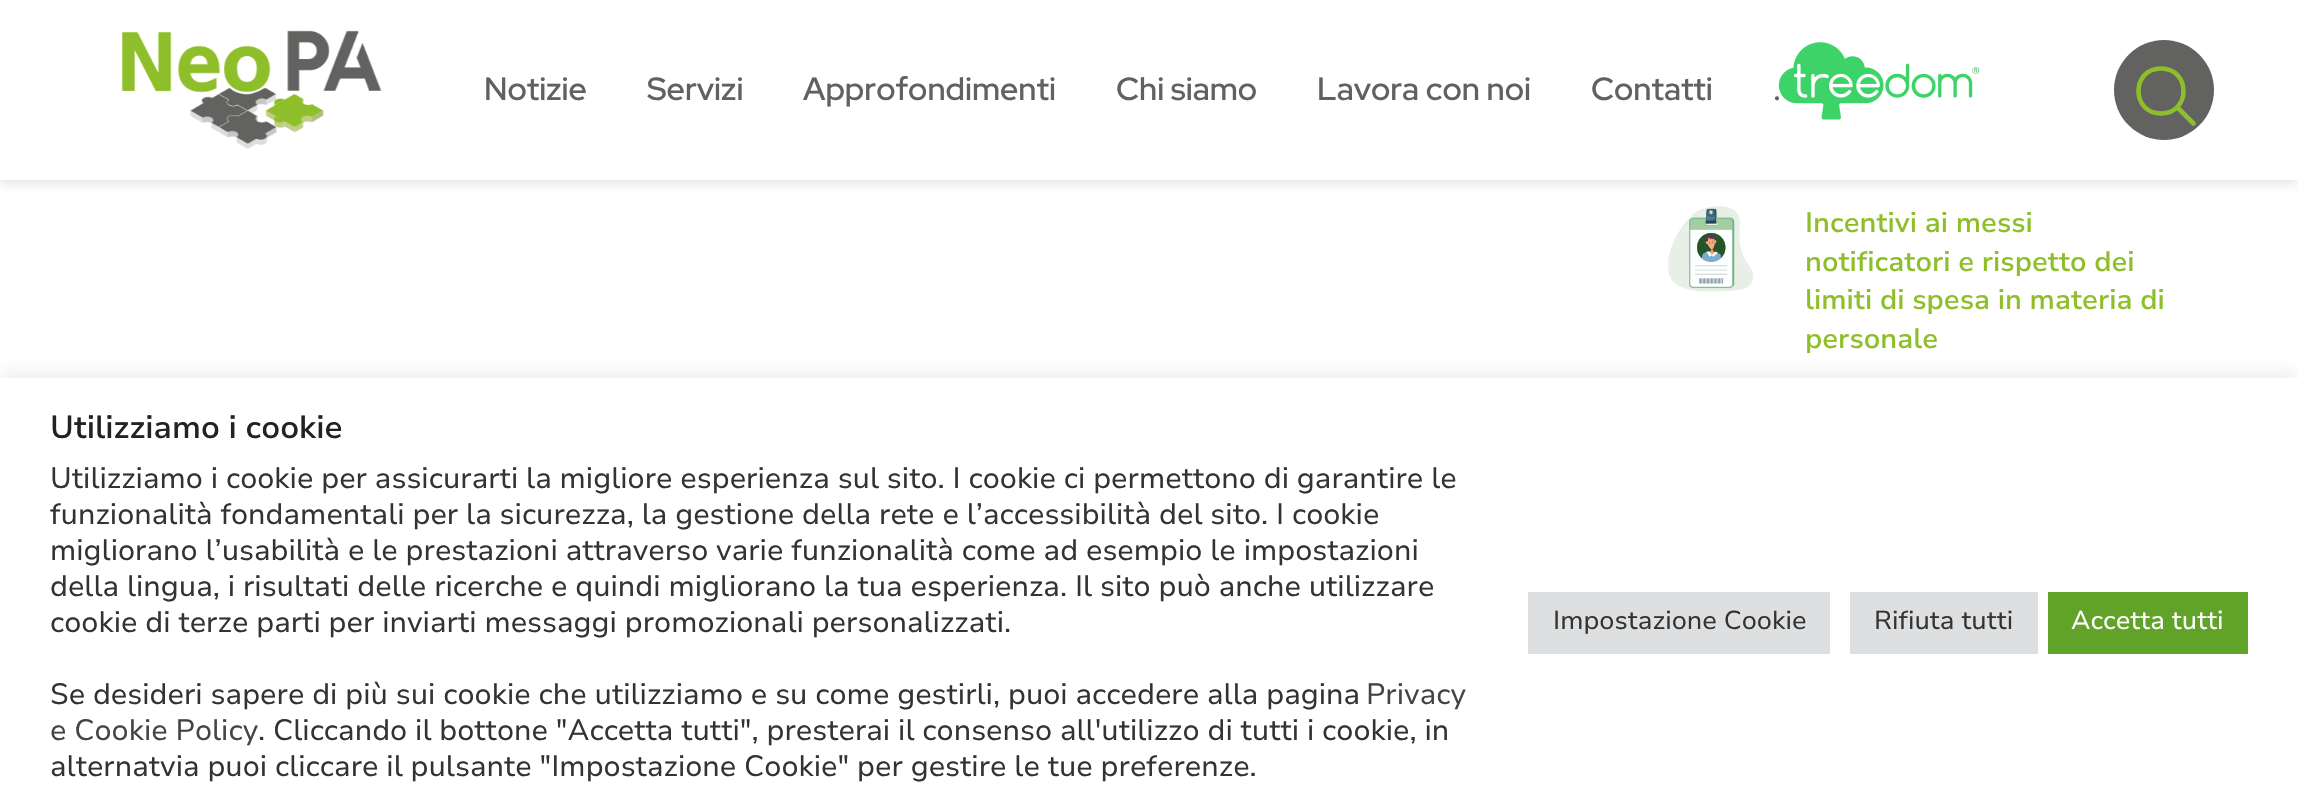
#include "include/core/SkBlurTypes.h"
#include "include/core/SkCanvas.h"
#include "include/core/SkData.h"
#include "include/core/SkFont.h"
#include "include/core/SkFontMgr.h"
#include "include/core/SkImage.h"
#include "include/core/SkMaskFilter.h"
#include "include/core/SkPaint.h"
#include "include/core/SkPathBuilder.h"
#include "include/core/SkTextBlob.h"
#include "include/effects/SkDashPathEffect.h"
#include "include/effects/SkGradientShader.h"
#include "include/utils/SkParsePath.h"

extern sk_sp<SkFontMgr> fontMgr;

void draw(SkCanvas* canvas) {
    SkPaint p;
    p.setAntiAlias(true);
    auto font = [&](const char* family, int weight, float size, bool italic = false) {
        SkFontStyle style(weight, SkFontStyle::kNormal_Width,
            italic ? SkFontStyle::kItalic_Slant : SkFontStyle::kUpright_Slant);
        SkFont result(fontMgr->matchFamilyStyle(family, style), size);
        result.setSubpixel(true);
        return result;
    };
    auto drawPhoto = [&](const char* path, float l, float t, float r, float b) {
        auto image = SkImages::DeferredFromEncodedData(SkData::MakeFromFileName(path));
        canvas->drawImageRect(image, SkRect::MakeLTRB(l, t, r, b), SkSamplingOptions());
    };
    canvas->clear(0xFFFFFFFF);
    p.setColor(0x1A000000);
    p.setMaskFilter(SkMaskFilter::MakeBlur(kNormal_SkBlurStyle, 5));
    canvas->drawRect(SkRect::MakeLTRB(0, 4, 2298, 184), p);
    p.setMaskFilter(nullptr);
    p.setColor(0xFFFFFFFF);
    canvas->drawRect(SkRect::MakeLTRB(0, 0, 2298, 180), p);
    drawPhoto("media/1.png", 121, 30, 382, 149);
    auto font1 = font("Red Hat Display", 600, 32);
    p.setColor(0xFF616161);
    {
        const struct { const char* s; float x, y; } items[] = {
            {"Notizie", 484, 100},
            {"Servizi", 647, 100},
            {"Approfondimenti", 803, 100},
            {"Chi siamo", 1116, 100},
            {"Lavora con noi", 1317, 100},
            {"Contatti", 1591, 100},
        };
        for (auto [s, x, y] : items) {
            canvas->drawString(s, x, y, font1, p);
        }
    }
    drawPhoto("media/2.png", 1778, 42, 1980, 120);
    canvas->drawString(".", 1773, 100, font1, p);
    p.setColor(0xFF626261);
    canvas->drawCircle(2164, 90, 50, p);
    p.setStyle(SkPaint::kStroke_Style);
    p.setStrokeWidth(4.6f);
    p.setColor(0xFF8EBE2B);
    canvas->drawPath(SkPathBuilder().moveTo(2161, 68.5f).cubicTo(2131, 68.5f, 2131, 113.5f, 2161, 113.5f).cubicTo(2191, 113.5f, 2191, 68.5f, 2161, 68.5f).close().detach(), p);
    p.setStrokeCap(SkPaint::kRound_Cap);
    canvas->drawPath(SkPathBuilder().moveTo(2178, 108).lineTo(2193.5f, 123.5f).detach(), p);
    drawPhoto("media/3.png", 1668, 206, 1753, 292);
    auto font2 = font("Nunito Sans", 600, 28);
    p.setStyle(SkPaint::kFill_Style);
    p.setColor(0xFF8EBF2A);
    {
        const struct { const char* s; float x, y; } items[] = {
            {"Incentivi ai messi", 1805, 232},
            {"notificatori e rispetto dei", 1805, 271},
            {"limiti di spesa in materia di", 1805, 309},
            {"personale", 1805, 348},
        };
        for (auto [s, x, y] : items) {
            canvas->drawString(s, x, y, font2, p);
        }
    }
    p.setColor(0x4DACABAB);
    p.setMaskFilter(SkMaskFilter::MakeBlur(kNormal_SkBlurStyle, 10));
    canvas->drawRect(SkRect::MakeLTRB(0, 376, 2298, 810), p);
    p.setMaskFilter(nullptr);
    p.setColor(0xFFFFFFFF);
    canvas->drawRect(SkRect::MakeLTRB(0, 378, 2298, 811), p);
    auto font3 = font("Nunito Sans", 600, 32);
    p.setColor(0xFF222222);
    canvas->drawString("Utilizziamo i cookie", 50, 438, font3, p);
    auto font4 = font("Nunito Sans", 400, 29.35f);
    p.setColor(0xFF333333);
    {
        const struct { const char* s; float x, y; } items[] = {
            {"Utilizziamo i cookie per assicurarti la migliore esperienza sul sito. I cookie ci permettono di garantire le", 50, 488},
            {"funzionalità fondamentali per la sicurezza, la gestione della rete e l’accessibilità del sito. I cookie", 50, 524},
            {"migliorano l’usabilità e le prestazioni attraverso varie funzionalità come ad esempio le impostazioni", 50, 560},
            {"della lingua, i risultati delle ricerche e quindi migliorano la tua esperienza. Il sito può anche utilizzare", 50, 596},
            {"cookie di terze parti per inviarti messaggi promozionali personalizzati.", 50, 632},
            {"Se desideri sapere di più sui cookie che utilizziamo e su come gestirli, puoi accedere alla pagina", 50, 704},
        };
        for (auto [s, x, y] : items) {
            canvas->drawString(s, x, y, font4, p);
        }
    }
    p.setColor(0xFF444444);
    canvas->drawString("Privacy", 1366, 704, font4, p);
    canvas->drawString("e Cookie Policy", 50, 740, font4, p);
    p.setColor(0xFF333333);
    canvas->drawString(". Cliccando il bottone \"Accetta tutti\", presterai il consenso all'utilizzo di tutti i cookie, in", 258, 740, font4, p);
    canvas->drawString("alternatvia puoi cliccare il pulsante \"Impostazione Cookie\" per gestire le tue preferenze.", 50, 776, font4, p);
    p.setColor(0xFFDEDFE0);
    canvas->drawRect(SkRect::MakeLTRB(1528, 592, 1830, 654), p);
    auto font5 = font("Nunito Sans", 400, 26);
    p.setColor(0xFF333333);
    canvas->drawString("Impostazione Cookie", 1553, 629, font5, p);
    p.setColor(0xFFDEDFE0);
    canvas->drawRect(SkRect::MakeLTRB(1850, 592, 2038, 654), p);
    p.setColor(0xFF333333);
    canvas->drawString("Rifiuta tutti", 1874, 629, font5, p);
    p.setColor(0xFF61A229);
    canvas->drawRect(SkRect::MakeLTRB(2048, 592, 2248, 654), p);
    p.setColor(0xFFFFFFFF);
    canvas->drawString("Accetta tutti", 2071, 629, font5, p);
}
